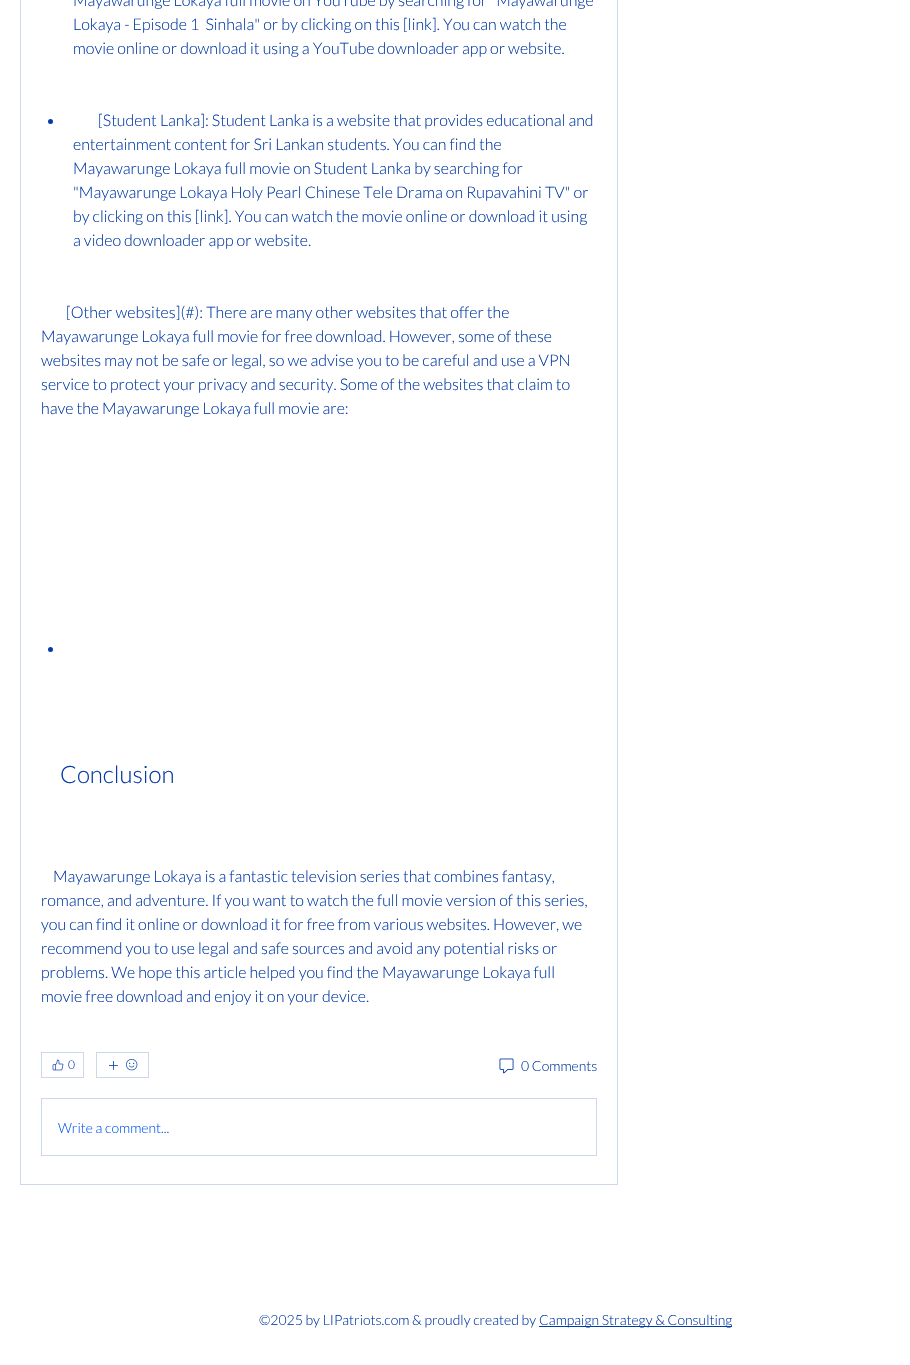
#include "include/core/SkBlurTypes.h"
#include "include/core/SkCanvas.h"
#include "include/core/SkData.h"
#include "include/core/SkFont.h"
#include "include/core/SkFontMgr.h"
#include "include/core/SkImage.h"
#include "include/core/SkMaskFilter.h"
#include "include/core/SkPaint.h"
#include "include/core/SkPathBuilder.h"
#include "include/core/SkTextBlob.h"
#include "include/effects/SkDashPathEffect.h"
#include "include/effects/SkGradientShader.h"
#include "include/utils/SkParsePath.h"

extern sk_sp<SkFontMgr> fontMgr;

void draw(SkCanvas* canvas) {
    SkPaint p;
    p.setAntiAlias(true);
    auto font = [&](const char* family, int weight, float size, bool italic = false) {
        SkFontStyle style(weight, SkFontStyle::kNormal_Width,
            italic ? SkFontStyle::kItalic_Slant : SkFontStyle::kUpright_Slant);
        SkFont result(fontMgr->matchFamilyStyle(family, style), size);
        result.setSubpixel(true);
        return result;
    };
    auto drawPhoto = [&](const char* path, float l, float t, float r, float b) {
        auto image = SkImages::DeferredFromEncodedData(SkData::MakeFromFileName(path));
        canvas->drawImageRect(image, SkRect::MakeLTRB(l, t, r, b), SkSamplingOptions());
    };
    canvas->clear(0xFFFFFFFF);
    p.setStyle(SkPaint::kStroke_Style);
    p.setStrokeWidth(1);
    p.setColor(0xFFCDD8ED);
    canvas->drawRect(SkRect::MakeLTRB(20.5f, -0.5f, 617.5f, 1184.5f), p);
    auto font1 = font("Lato", 300, 16);
    p.setStyle(SkPaint::kFill_Style);
    p.setColor(0xFF043AA4);
    {
        const struct { const char* s; float x, y; } items[] = {
            {"Mayawarunge Lokaya full movie on YouTube by searching for \"Mayawarunge", 73, 6},
            {"Lokaya - Episode 1  Sinhala\" or by clicking on this [link]. You can watch the", 73, 30},
            {"movie online or download it using a YouTube downloader app or website.", 73, 54},
        };
        for (auto [s, x, y] : items) {
            canvas->drawString(s, x, y, font1, p);
        }
    }
    canvas->drawCircle(50.5f, 121.5f, 2.5f, p);
    {
        const struct { const char* s; float x, y; } items[] = {
            {"[Student Lanka]: Student Lanka is a website that provides educational and", 98, 126},
            {"entertainment content for Sri Lankan students. You can find the", 73, 150},
            {"Mayawarunge Lokaya full movie on Student Lanka by searching for", 73, 174},
            {"\"Mayawarunge Lokaya Holy Pearl Chinese Tele Drama on Rupavahini TV\" or", 73, 198},
            {"by clicking on this [link]. You can watch the movie online or download it using", 73, 222},
            {"a video downloader app or website.", 73, 246},
            {"[Other websites](#): There are many other websites that offer the", 66, 318},
            {"Mayawarunge Lokaya full movie for free download. However, some of these", 41, 342},
            {"websites may not be safe or legal, so we advise you to be careful and use a VPN", 41, 366},
            {"service to protect your privacy and security. Some of the websites that claim to", 41, 390},
            {"have the Mayawarunge Lokaya full movie are:", 41, 414},
        };
        for (auto [s, x, y] : items) {
            canvas->drawString(s, x, y, font1, p);
        }
    }
    canvas->drawCircle(50.5f, 649.5f, 2.5f, p);
    auto font2 = font("Lato", 300, 24);
    canvas->drawString("Conclusion", 60, 783, font2, p);
    {
        const struct { const char* s; float x, y; } items[] = {
            {"Mayawarunge Lokaya is a fantastic television series that combines fantasy,", 53, 882},
            {"romance, and adventure. If you want to watch the full movie version of this series,", 41, 906},
            {"you can find it online or download it for free from various websites. However, we", 41, 930},
            {"recommend you to use legal and safe sources and avoid any potential risks or", 41, 954},
            {"problems. We hope this article helped you find the Mayawarunge Lokaya full", 41, 978},
            {"movie free download and enjoy it on your device.", 41, 1002},
        };
        for (auto [s, x, y] : items) {
            canvas->drawString(s, x, y, font1, p);
        }
    }
    p.setStyle(SkPaint::kStroke_Style);
    p.setColor(0xFFCDD8ED);
    canvas->drawRect(SkRect::MakeLTRB(41.5f, 1052.5f, 83.5f, 1077.5f), p);
    drawPhoto("media/1.png", 52, 1059, 64, 1071);
    auto font3 = font("Lato", 300, 12);
    p.setStyle(SkPaint::kFill_Style);
    p.setColor(0xFF043AA4);
    canvas->drawString("0", 68, 1069, font3, p);
    p.setStyle(SkPaint::kStroke_Style);
    p.setColor(0xFFCDD8ED);
    canvas->drawRect(SkRect::MakeLTRB(96.5f, 1052.5f, 148.5f, 1077.5f), p);
    drawPhoto("media/2.png", 109, 1061, 118, 1070);
    drawPhoto("media/3.png", 126, 1059, 138, 1071);
    drawPhoto("media/4.png", 499, 1058, 514, 1074);
    auto font4 = font("Lato", 300, 14);
    p.setStyle(SkPaint::kFill_Style);
    p.setColor(0xFF043AA4);
    canvas->drawString("0 Comments", 521, 1071, font4, p);
    p.setStyle(SkPaint::kStroke_Style);
    p.setColor(0xFFCDD8ED);
    canvas->drawRect(SkRect::MakeLTRB(41.5f, 1098.5f, 596.5f, 1155.5f), p);
    p.setStyle(SkPaint::kFill_Style);
    p.setColor(0xFF0658F7);
    canvas->drawString("Write a comment...", 58, 1133, font4, p);
    p.setColor(0xFF043AA4);
    canvas->drawString("©2025 by LIPatriots.com & proudly created by", 259, 1325, font4, p);
    canvas->drawRect(SkRect::MakeLTRB(539, 1326, 732, 1327), p);
    canvas->drawString("Campaign Strategy & Consulting", 539, 1325, font4, p);
}
